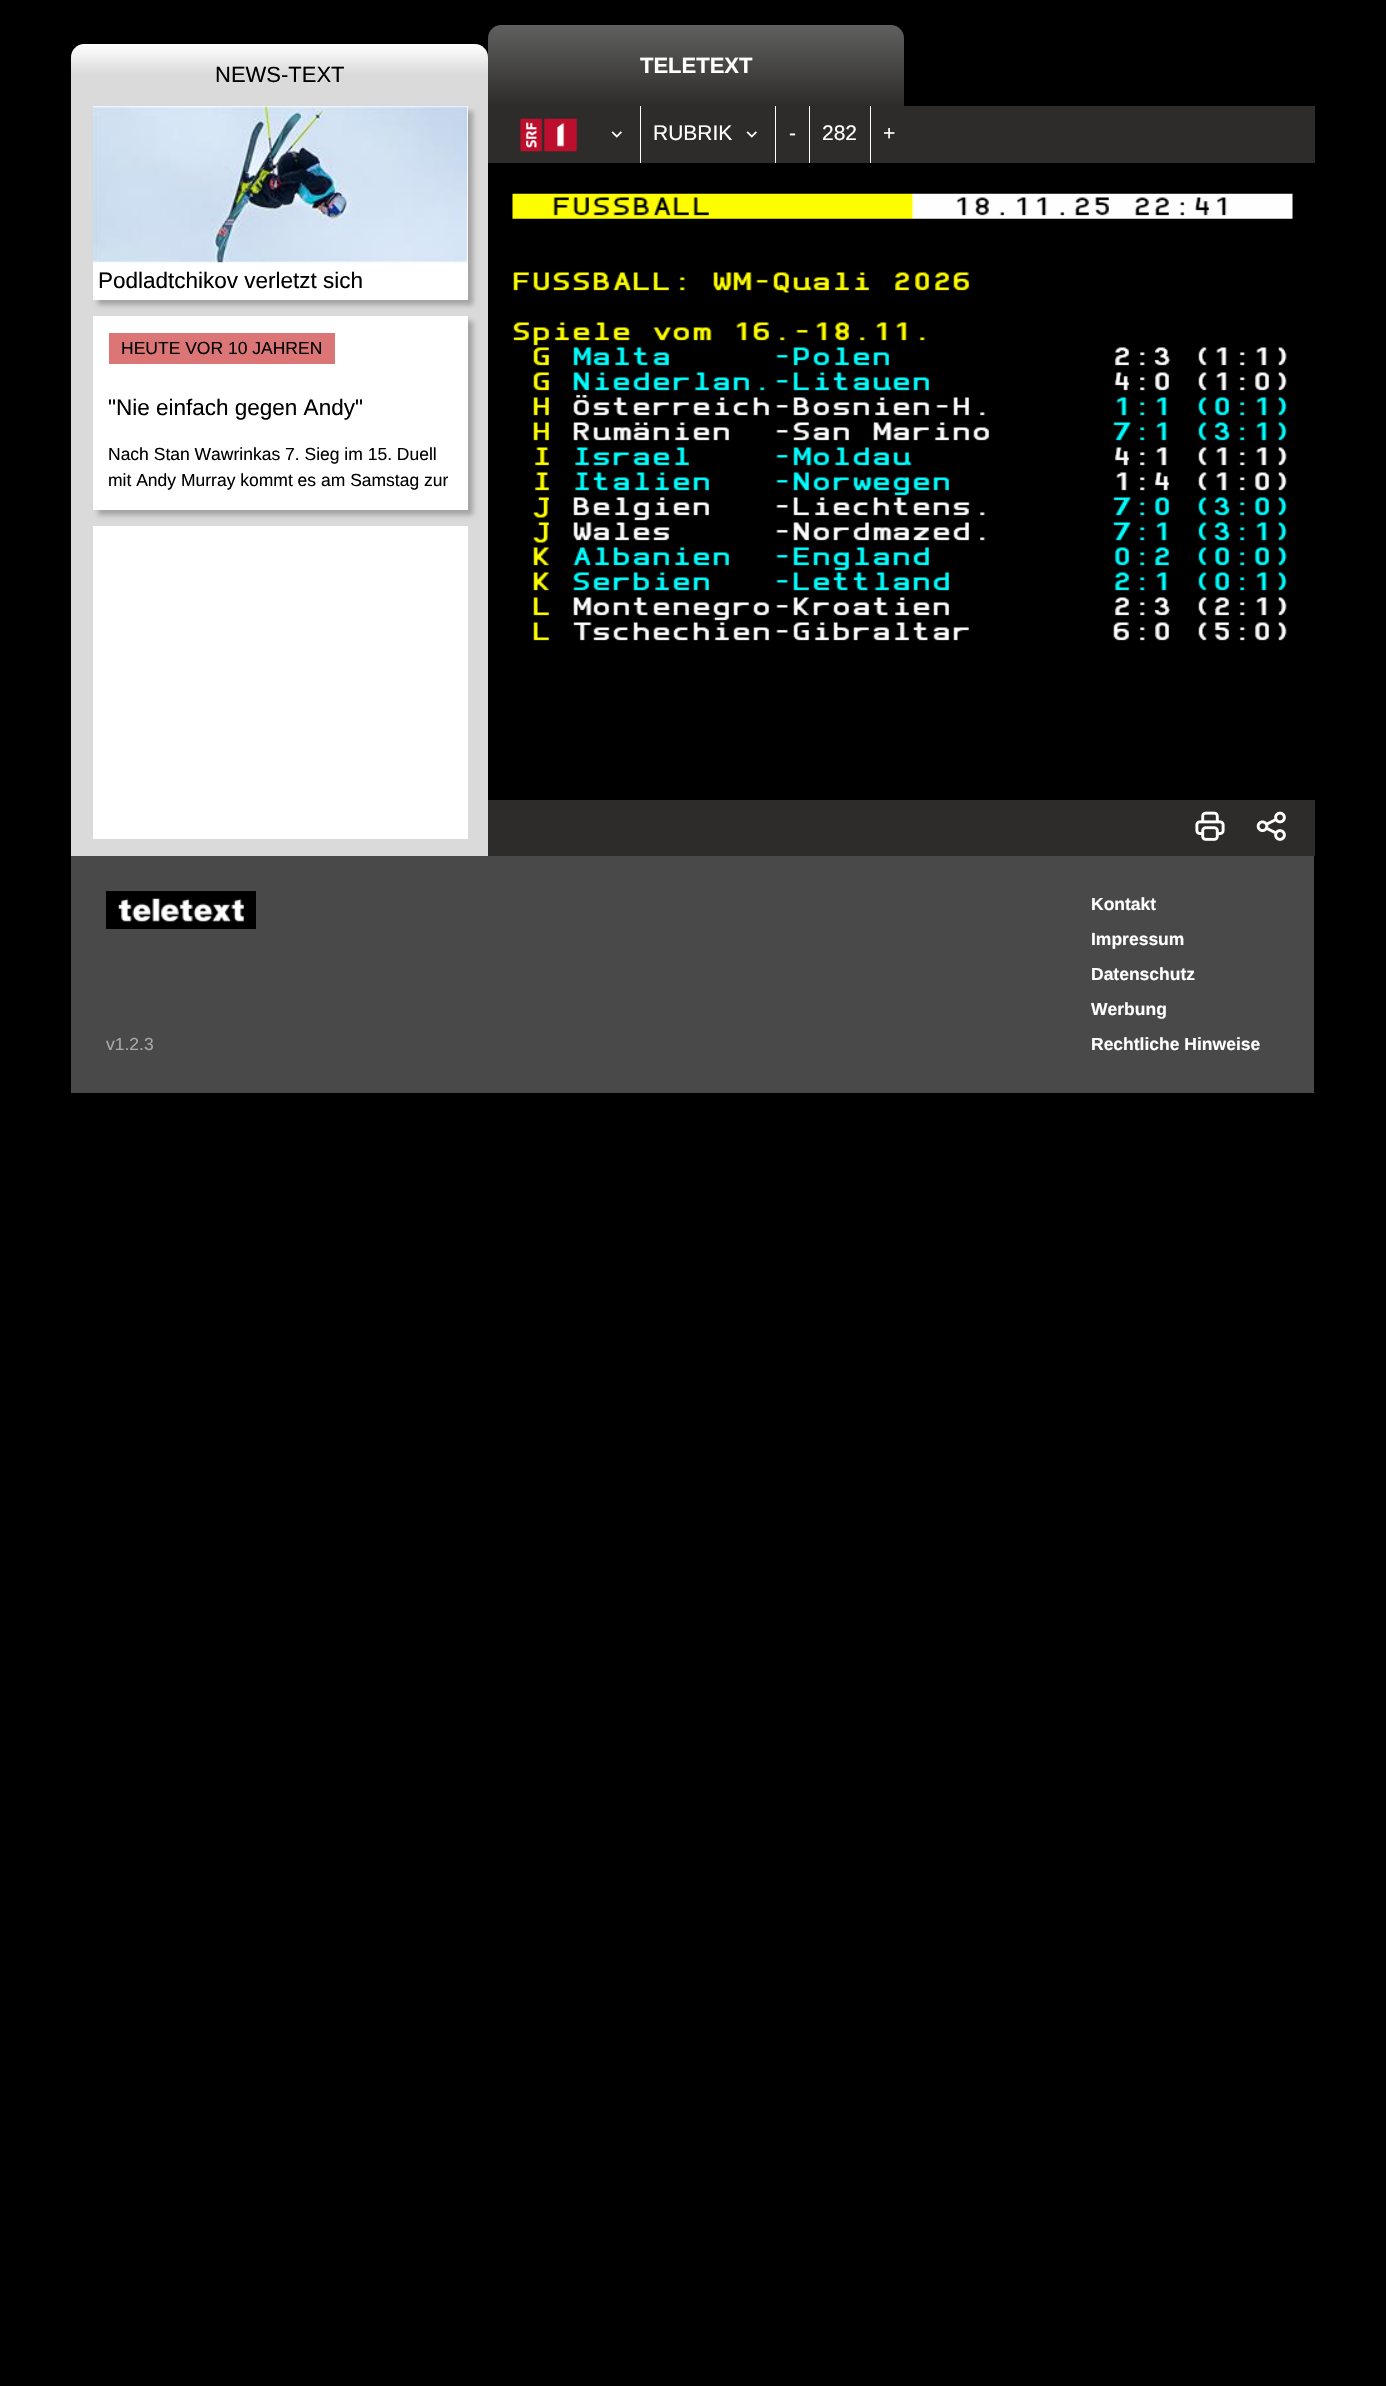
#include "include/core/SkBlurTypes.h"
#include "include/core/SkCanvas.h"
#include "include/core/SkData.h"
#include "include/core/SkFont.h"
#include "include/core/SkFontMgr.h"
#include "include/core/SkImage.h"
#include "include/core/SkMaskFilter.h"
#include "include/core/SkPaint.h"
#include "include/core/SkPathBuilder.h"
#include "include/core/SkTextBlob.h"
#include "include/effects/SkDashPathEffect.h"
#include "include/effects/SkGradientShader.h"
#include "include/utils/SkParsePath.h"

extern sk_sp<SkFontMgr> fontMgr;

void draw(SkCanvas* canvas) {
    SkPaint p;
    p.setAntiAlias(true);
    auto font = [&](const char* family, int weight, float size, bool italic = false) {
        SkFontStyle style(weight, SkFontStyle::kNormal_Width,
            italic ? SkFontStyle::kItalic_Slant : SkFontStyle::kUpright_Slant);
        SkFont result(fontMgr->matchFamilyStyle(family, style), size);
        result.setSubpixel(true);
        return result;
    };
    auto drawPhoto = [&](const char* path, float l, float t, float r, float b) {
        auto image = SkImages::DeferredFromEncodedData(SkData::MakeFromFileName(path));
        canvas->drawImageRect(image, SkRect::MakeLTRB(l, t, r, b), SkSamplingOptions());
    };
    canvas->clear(0xFF000000);
    {
        const SkColor colors[] = {0xFFDADADA, 0xFFDADADA, 0xFFFFFFFF};
        const float stops[] = {0, 0.51f, 1};
        const SkPoint ends[] = {{279, 106}, {279, 44}};
        p.setShader(SkGradientShader::MakeLinear(ends, colors, stops, 3, SkTileMode::kClamp));
        p.setAlpha(255);
    }
    canvas->drawPath(SkPathBuilder().moveTo(84, 44).lineTo(475, 44).cubicTo(482, 44, 488, 50, 488, 57).lineTo(488, 106).lineTo(71, 106).lineTo(71, 57).cubicTo(71, 50, 77, 44, 84, 44).close().detach(), p);
    auto font1 = font("Liberation Sans", 400, 22);
    p.setShader(nullptr);
    p.setColor(0xFF000000);
    canvas->drawString("NEWS-TEXT", 215, 82, font1, p);
    {
        const SkColor colors[] = {0xFF2D2C2A, 0xFF606060};
        const float stops[] = {0, 1};
        const SkPoint ends[] = {{696, 106}, {696, 25}};
        p.setShader(SkGradientShader::MakeLinear(ends, colors, stops, 2, SkTileMode::kClamp));
        p.setAlpha(255);
    }
    canvas->drawPath(SkPathBuilder().moveTo(501, 25).lineTo(891, 25).cubicTo(898, 25, 904, 31, 904, 38).lineTo(904, 106).lineTo(488, 106).lineTo(488, 38).cubicTo(488, 31, 494, 25, 501, 25).close().detach(), p);
    auto font2 = font("Liberation Sans", 700, 22);
    p.setShader(nullptr);
    p.setColor(0xFFFFFFFF);
    canvas->drawString("TELETEXT", 640, 73, font2, p);
    p.setColor(0xFF2D2C2A);
    canvas->drawRect(SkRect::MakeLTRB(488, 106, 1315, 163), p);
    p.setColor(0xFFFFFFFF);
    canvas->drawRect(SkRect::MakeLTRB(640, 106, 641, 163), p);
    drawPhoto("media/1.png", 520, 118, 578, 152);
    drawPhoto("media/2.png", 611, 131, 622, 138);
    canvas->drawRect(SkRect::MakeLTRB(775, 106, 776, 163), p);
    auto font3 = font("Liberation Sans", 400, 21);
    canvas->drawString("RUBRIK", 653, 140, font3, p);
    drawPhoto("media/2.png", 746, 131, 757, 138);
    canvas->drawRect(SkRect::MakeLTRB(809, 106, 810, 163), p);
    canvas->drawString("-", 789, 140, font3, p);
    canvas->drawRect(SkRect::MakeLTRB(870, 106, 871, 163), p);
    canvas->drawString("282", 822, 140, font3, p);
    canvas->drawString("+", 883, 140, font3, p);
    drawPhoto("media/3.png", 512, 193, 1293, 641);
    p.setColor(0xFF2D2C2A);
    canvas->drawRect(SkRect::MakeLTRB(488, 800, 1315, 856), p);
    drawPhoto("media/4.png", 1195, 811, 1225, 841);
    drawPhoto("media/5.png", 1256, 811, 1286, 841);
    p.setColor(0xFFDADADA);
    canvas->drawRect(SkRect::MakeLTRB(71, 106, 488, 856), p);
    p.setColor(0x40000000);
    p.setMaskFilter(SkMaskFilter::MakeBlur(kNormal_SkBlurStyle, 2.5f));
    canvas->drawRect(SkRect::MakeLTRB(98, 111, 473, 305), p);
    p.setMaskFilter(nullptr);
    p.setColor(0xFFFFFFFF);
    canvas->drawRect(SkRect::MakeLTRB(93, 106, 468, 300), p);
    drawPhoto("media/6.png", 92, 106, 468, 263);
    auto font4 = font("Liberation Sans", 400, 22.5f);
    p.setColor(0xFF000000);
    canvas->drawString("Podladtchikov verletzt sich", 98, 288, font4, p);
    p.setColor(0x40000000);
    p.setMaskFilter(SkMaskFilter::MakeBlur(kNormal_SkBlurStyle, 2.5f));
    canvas->drawRect(SkRect::MakeLTRB(98, 321, 473, 515), p);
    p.setMaskFilter(nullptr);
    p.setColor(0xFFFFFFFF);
    canvas->drawRect(SkRect::MakeLTRB(93, 316, 468, 510), p);
    p.setColor(0xFFDC7676);
    canvas->drawRect(SkRect::MakeLTRB(109, 333, 335, 364), p);
    auto font5 = font("Liberation Sans", 400, 17.5f);
    p.setColor(0xFF000000);
    canvas->drawString("HEUTE VOR 10 JAHREN", 121, 354, font5, p);
    canvas->drawString("\"Nie einfach gegen Andy\"", 108, 415, font4, p);
    canvas->drawString("Nach Stan Wawrinkas 7. Sieg im 15. Duell", 108, 460, font5, p);
    canvas->drawString("mit Andy Murray kommt es am Samstag zur", 108, 486, font5, p);
    {
        const struct { float l, t, r, b; SkColor color; } items[] = {
            {93, 526, 468, 839, 0xFFFFFFFF},
            {71, 856, 1314, 1093, 0xFF494949},
            {106, 891, 256, 929, 0xFF000000},
        };
        for (auto [l, t, r, b, color] : items) {
            p.setColor(color);
            canvas->drawRect(SkRect::MakeLTRB(l, t, r, b), p);
        }
    }
    drawPhoto("media/7.png", 118, 898, 244, 922);
    p.setColor(0xFFA9A9A9);
    canvas->drawString("v1.2.3", 106, 1050, font5, p);
    auto font6 = font("Liberation Sans", 700, 17.5f);
    p.setColor(0xFFFFFFFF);
    {
        const struct { const char* s; float x, y; } items[] = {
            {"Kontakt", 1091, 910},
            {"Impressum", 1091, 945},
            {"Datenschutz", 1091, 980},
            {"Werbung", 1091, 1015},
            {"Rechtliche Hinweise", 1091, 1050},
        };
        for (auto [s, x, y] : items) {
            canvas->drawString(s, x, y, font6, p);
        }
    }
}
